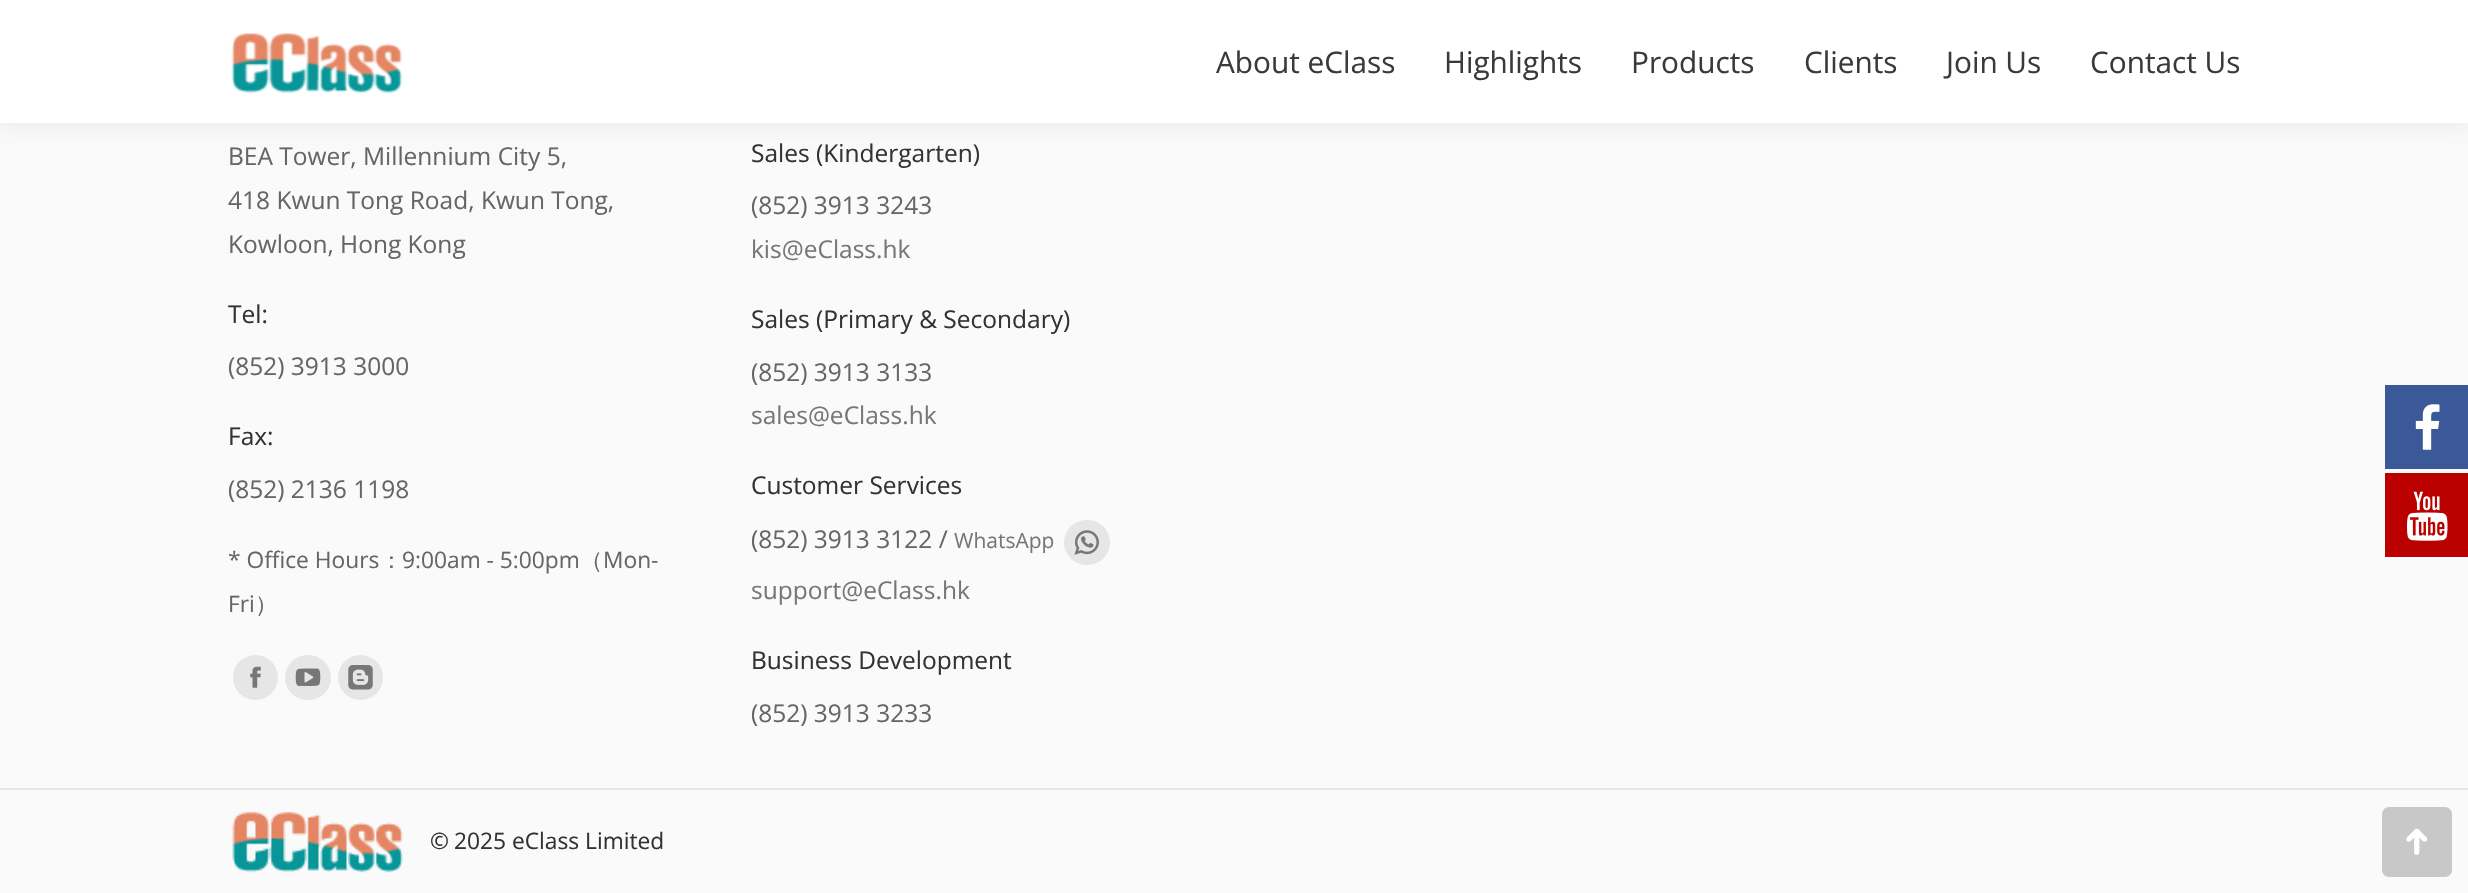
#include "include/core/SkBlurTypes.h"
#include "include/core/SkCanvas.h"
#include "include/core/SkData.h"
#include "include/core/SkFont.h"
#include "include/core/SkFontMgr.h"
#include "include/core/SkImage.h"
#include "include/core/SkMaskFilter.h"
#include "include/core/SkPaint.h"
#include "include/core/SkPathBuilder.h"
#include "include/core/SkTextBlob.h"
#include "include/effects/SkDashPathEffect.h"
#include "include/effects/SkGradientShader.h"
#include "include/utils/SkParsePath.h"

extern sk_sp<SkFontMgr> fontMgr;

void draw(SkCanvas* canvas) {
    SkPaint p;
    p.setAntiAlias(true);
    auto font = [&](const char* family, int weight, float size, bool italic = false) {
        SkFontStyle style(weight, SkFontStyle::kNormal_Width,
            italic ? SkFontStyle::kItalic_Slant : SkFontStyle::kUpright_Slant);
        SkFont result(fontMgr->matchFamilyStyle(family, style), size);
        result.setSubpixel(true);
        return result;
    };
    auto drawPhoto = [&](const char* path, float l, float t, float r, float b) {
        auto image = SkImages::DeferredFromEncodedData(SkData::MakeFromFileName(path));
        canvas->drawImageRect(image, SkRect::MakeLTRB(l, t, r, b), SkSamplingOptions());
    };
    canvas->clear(0xFFFAFAFA);
    p.setColor(0x12000000);
    p.setMaskFilter(SkMaskFilter::MakeBlur(kNormal_SkBlurStyle, 13));
    canvas->drawRect(SkRect::MakeLTRB(-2, -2, 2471, 124), p);
    p.setMaskFilter(nullptr);
    p.setColor(0xFFFFFFFF);
    canvas->drawRect(SkRect::MakeLTRB(0, 0, 2468, 123), p);
    drawPhoto("media/1.png", 231, 33, 402, 94);
    auto font1 = font("Open Sans", 400, 29.75f);
    p.setColor(0xFF3A3A3A);
    {
        const struct { const char* s; float x, y; } items[] = {
            {"About eClass", 1216, 73},
            {"Highlights", 1444, 73},
            {"Products", 1631, 73},
            {"Clients", 1804, 73},
            {"Join Us", 1946, 73},
            {"Contact Us", 2090, 73},
        };
        for (auto [s, x, y] : items) {
            canvas->drawString(s, x, y, font1, p);
        }
    }
    auto font2 = font("Open Sans", 400, 24.5f);
    p.setColor(0xFF666666);
    {
        const struct { const char* s; float x, y; } items[] = {
            {"BEA Tower, Millennium City 5,", 228, 165},
            {"418 Kwun Tong Road, Kwun Tong,", 228, 209},
            {"Kowloon, Hong Kong", 228, 253},
        };
        for (auto [s, x, y] : items) {
            canvas->drawString(s, x, y, font2, p);
        }
    }
    p.setColor(0xFF333333);
    canvas->drawString("Tel:", 228, 323, font2, p);
    p.setColor(0xFF666666);
    canvas->drawString("(852) 3913 3000", 228, 375, font2, p);
    p.setColor(0xFF333333);
    canvas->drawString("Fax:", 228, 445, font2, p);
    p.setColor(0xFF666666);
    canvas->drawString("(852) 2136 1198", 228, 498, font2, p);
    auto font3 = font("Open Sans", 400, 22.75f);
    canvas->drawString("* Office Hours", 228, 568, font3, p);
    auto font4 = font("WenQuanYi Zen Hei", 500, 22.75f);
    canvas->drawString("：", 380, 568, font4, p);
    canvas->drawString("9:00am - 5:00pm", 402, 568, font3, p);
    canvas->drawString("（", 580, 568, font4, p);
    canvas->drawString("Mon-", 603, 568, font3, p);
    canvas->drawString("Fri", 228, 612, font3, p);
    canvas->drawString("）", 255, 612, font4, p);
    p.setColor(0xFFE6E6E6);
    canvas->drawCircle(255.5f, 677.5f, 22.5f, p);
    drawPhoto("media/2.png", 250, 666, 261, 688);
    canvas->drawRoundRect(SkRect::MakeLTRB(285, 655, 331, 700), 22.5f, 22.5f, p);
    drawPhoto("media/3.png", 295, 668, 321, 686);
    canvas->drawCircle(360.5f, 677.5f, 22.5f, p);
    drawPhoto("media/4.png", 348, 665, 373, 690);
    p.setColor(0xFF333333);
    canvas->drawString("Sales (Kindergarten)", 751, 162, font2, p);
    p.setColor(0xFF666666);
    canvas->drawString("(852) 3913 3243", 751, 214, font2, p);
    p.setColor(0xFF777777);
    canvas->drawString("kis@eClass.hk", 751, 258, font2, p);
    p.setColor(0xFF333333);
    canvas->drawString("Sales (Primary & Secondary)", 751, 328, font2, p);
    p.setColor(0xFF666666);
    canvas->drawString("(852) 3913 3133", 751, 381, font2, p);
    p.setColor(0xFF777777);
    canvas->drawString("sales@eClass.hk", 751, 424, font2, p);
    p.setColor(0xFF333333);
    canvas->drawString("Customer Services", 751, 494, font2, p);
    p.setColor(0xFF666666);
    canvas->drawString("(852) 3913 3122 /", 751, 548, font2, p);
    auto font5 = font("Open Sans", 400, 21);
    p.setColor(0xFF777777);
    canvas->drawString("WhatsApp", 954, 548, font5, p);
    p.setColor(0xFFE6E6E6);
    canvas->drawRoundRect(SkRect::MakeLTRB(1064, 520, 1110, 565), 22.5f, 22.5f, p);
    drawPhoto("media/5.png", 1074, 530, 1099, 555);
    p.setColor(0xFF777777);
    canvas->drawString("support@eClass.hk", 751, 599, font2, p);
    p.setColor(0xFF333333);
    canvas->drawString("Business Development", 751, 669, font2, p);
    p.setColor(0xFF666666);
    canvas->drawString("(852) 3913 3233", 751, 722, font2, p);
    p.setColor(0xFFE6E6E6);
    canvas->drawRect(SkRect::MakeLTRB(0, 788, 2468, 790), p);
    drawPhoto("media/6.png", 232, 811, 403, 873);
    auto font6 = font("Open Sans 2", 400, 22.75f);
    p.setColor(0xFF333333);
    canvas->drawString("©", 430, 849, font6, p);
    canvas->drawString("2025 eClass Limited", 454, 849, font3, p);
    p.setColor(0xFFC8C8C8);
    canvas->drawRoundRect(SkRect::MakeLTRB(2382, 807, 2452, 877), 7, 7, p);
    drawPhoto("media/7.png", 2406, 828, 2428, 855);
    p.setColor(0xFF3B5998);
    canvas->drawRect(SkRect::MakeLTRB(2385, 385, 2468, 469), p);
    drawPhoto("media/8.png", 2415, 404, 2440, 450);
    p.setColor(0xFFBB0000);
    canvas->drawRect(SkRect::MakeLTRB(2385, 473, 2468, 557), p);
    drawPhoto("media/9.png", 2407, 491, 2448, 541);
}
